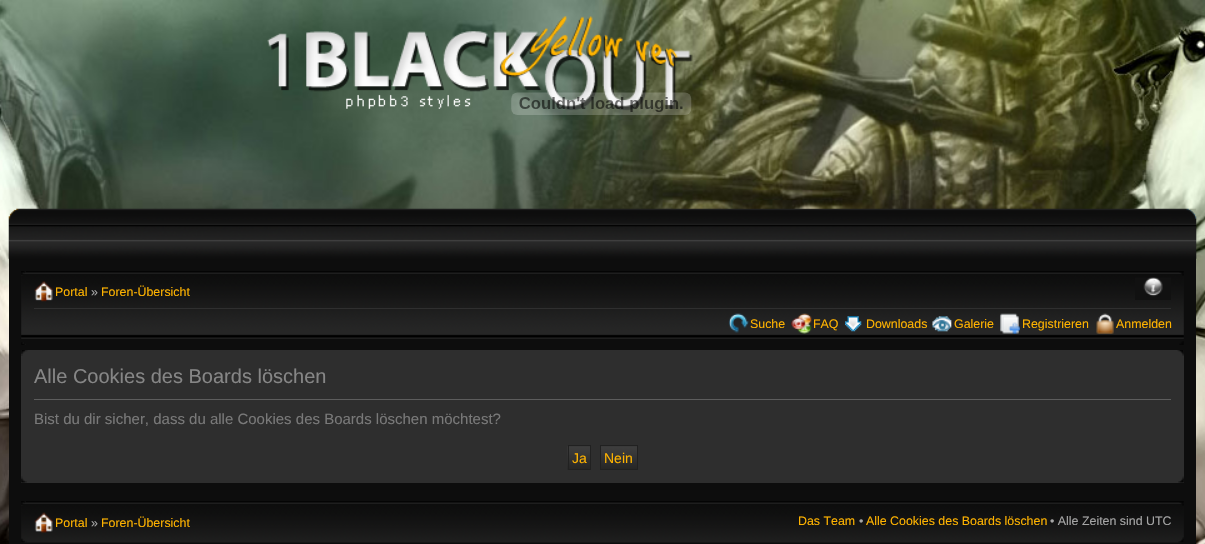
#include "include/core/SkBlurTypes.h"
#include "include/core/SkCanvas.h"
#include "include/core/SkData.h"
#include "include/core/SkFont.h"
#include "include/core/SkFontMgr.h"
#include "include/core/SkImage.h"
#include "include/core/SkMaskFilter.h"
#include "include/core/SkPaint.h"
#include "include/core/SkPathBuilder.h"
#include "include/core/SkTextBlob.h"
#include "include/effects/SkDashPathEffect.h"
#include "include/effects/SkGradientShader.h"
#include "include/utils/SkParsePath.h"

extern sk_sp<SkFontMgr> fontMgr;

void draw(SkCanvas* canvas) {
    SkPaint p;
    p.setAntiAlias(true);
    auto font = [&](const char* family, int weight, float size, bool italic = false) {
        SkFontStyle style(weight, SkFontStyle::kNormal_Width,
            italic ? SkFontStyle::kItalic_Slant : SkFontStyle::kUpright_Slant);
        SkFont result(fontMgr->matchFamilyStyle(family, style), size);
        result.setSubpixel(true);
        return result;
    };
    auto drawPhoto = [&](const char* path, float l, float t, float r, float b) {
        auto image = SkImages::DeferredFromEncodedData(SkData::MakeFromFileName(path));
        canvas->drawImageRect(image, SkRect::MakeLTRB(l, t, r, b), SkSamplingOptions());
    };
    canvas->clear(0xFFFFFFFF);
    drawPhoto("media/1.png", 0, 0, 1205, 544);
    drawPhoto("media/2.png", 267, 16, 693, 111);
    drawPhoto("media/3.png", 511, 92, 692, 115);
    p.setColor(0xFF0D0D0D);
    canvas->drawRect(SkRect::MakeLTRB(9, 258, 1196, 544), p);
    drawPhoto("media/4.png", 8, 208, 1197, 259);
    drawPhoto("media/5.png", 21, 271, 1184, 339);
    drawPhoto("media/6.png", 21, 271, 26, 276);
    drawPhoto("media/7.png", 1179, 272, 1184, 276);
    p.setColor(0xFF2F2F2F);
    canvas->drawRect(SkRect::MakeLTRB(34, 308, 1171, 309), p);
    drawPhoto("media/8.png", 34, 281, 54, 302);
    auto font1 = font("Liberation Sans", 400, 12.4f);
    p.setColor(0xFFFFB300);
    canvas->drawString("Portal", 55, 296, font1, p);
    p.setColor(0xFFA6A6A6);
    canvas->drawString("»", 91, 296, font1, p);
    p.setColor(0xFFFFB300);
    canvas->drawString("Foren-Übersicht", 101, 296, font1, p);
    drawPhoto("media/9.png", 1135, 277, 1171, 300);
    drawPhoto("media/10.png", 728, 313, 749, 333);
    canvas->drawString("Suche", 750, 328, font1, p);
    drawPhoto("media/11.png", 791, 313, 812, 334);
    canvas->drawString("FAQ", 813, 328, font1, p);
    drawPhoto("media/12.png", 845, 316, 862, 332);
    canvas->drawString("Downloads", 866, 328, font1, p);
    drawPhoto("media/13.png", 932, 316, 952, 332);
    canvas->drawString("Galerie", 954, 328, font1, p);
    drawPhoto("media/14.png", 1000, 313, 1020, 334);
    canvas->drawString("Registrieren", 1022, 328, font1, p);
    drawPhoto("media/15.png", 1096, 313, 1114, 334);
    canvas->drawString("Anmelden", 1116, 328, font1, p);
    drawPhoto("media/16.png", 21, 342, 26, 345);
    drawPhoto("media/17.png", 1179, 341, 1184, 345);
    p.setColor(0xFF2E2E2E);
    canvas->drawRect(SkRect::MakeLTRB(21, 350, 1184, 483), p);
    drawPhoto("media/18.png", 21, 350, 28, 356);
    drawPhoto("media/19.png", 1177, 350, 1184, 356);
    p.setColor(0xFF5D5D5D);
    canvas->drawRect(SkRect::MakeLTRB(34, 399, 1171, 400), p);
    auto font2 = font("Liberation Sans", 400, 20);
    p.setColor(0xFF868686);
    canvas->drawString("Alle Cookies des Boards löschen", 34, 383, font2, p);
    auto font3 = font("Liberation Sans", 400, 15);
    p.setColor(0xFF797979);
    canvas->drawString("Bist du dir sicher, dass du alle Cookies des Boards löschen möchtest?", 34, 424, font3, p);
    drawPhoto("media/20.png", 567, 446, 590, 470);
    p.setStyle(SkPaint::kStroke_Style);
    p.setStrokeWidth(1);
    p.setColor(0xFF212121);
    canvas->drawRect(SkRect::MakeLTRB(568.5f, 445.5f, 590.5f, 469.5f), p);
    auto font4 = font("Liberation Sans", 400, 14);
    p.setStyle(SkPaint::kFill_Style);
    p.setColor(0xFFFFB300);
    canvas->drawString("Ja", 572, 463, font4, p);
    drawPhoto("media/21.png", 601, 446, 637, 469);
    p.setStyle(SkPaint::kStroke_Style);
    p.setColor(0xFF212121);
    canvas->drawRect(SkRect::MakeLTRB(600.5f, 445.5f, 637.5f, 469.5f), p);
    p.setStyle(SkPaint::kFill_Style);
    p.setColor(0xFFFFB300);
    canvas->drawString("Nein", 604, 463, font4, p);
    drawPhoto("media/22.png", 21, 476, 27, 483);
    drawPhoto("media/23.png", 1178, 476, 1184, 483);
    drawPhoto("media/24.png", 21, 501, 1184, 543);
    drawPhoto("media/6.png", 21, 501, 26, 506);
    drawPhoto("media/7.png", 1179, 502, 1184, 506);
    drawPhoto("media/25.png", 34, 512, 54, 533);
    canvas->drawString("Portal", 55, 527, font1, p);
    p.setColor(0xFFA6A6A6);
    canvas->drawString("»", 91, 527, font1, p);
    p.setColor(0xFFFFB300);
    canvas->drawString("Foren-Übersicht", 101, 527, font1, p);
    canvas->drawString("Das Team", 798, 525, font1, p);
    p.setColor(0xFFA6A6A6);
    canvas->drawString("•", 859, 525, font1, p);
    p.setColor(0xFFFFB300);
    canvas->drawString("Alle Cookies des Boards löschen", 866, 525, font1, p);
    p.setColor(0xFFA6A6A6);
    canvas->drawString("• Alle Zeiten sind UTC", 1050, 525, font1, p);
    drawPhoto("media/26.png", 21, 538, 27, 543);
    drawPhoto("media/27.png", 1178, 537, 1184, 543);
}
